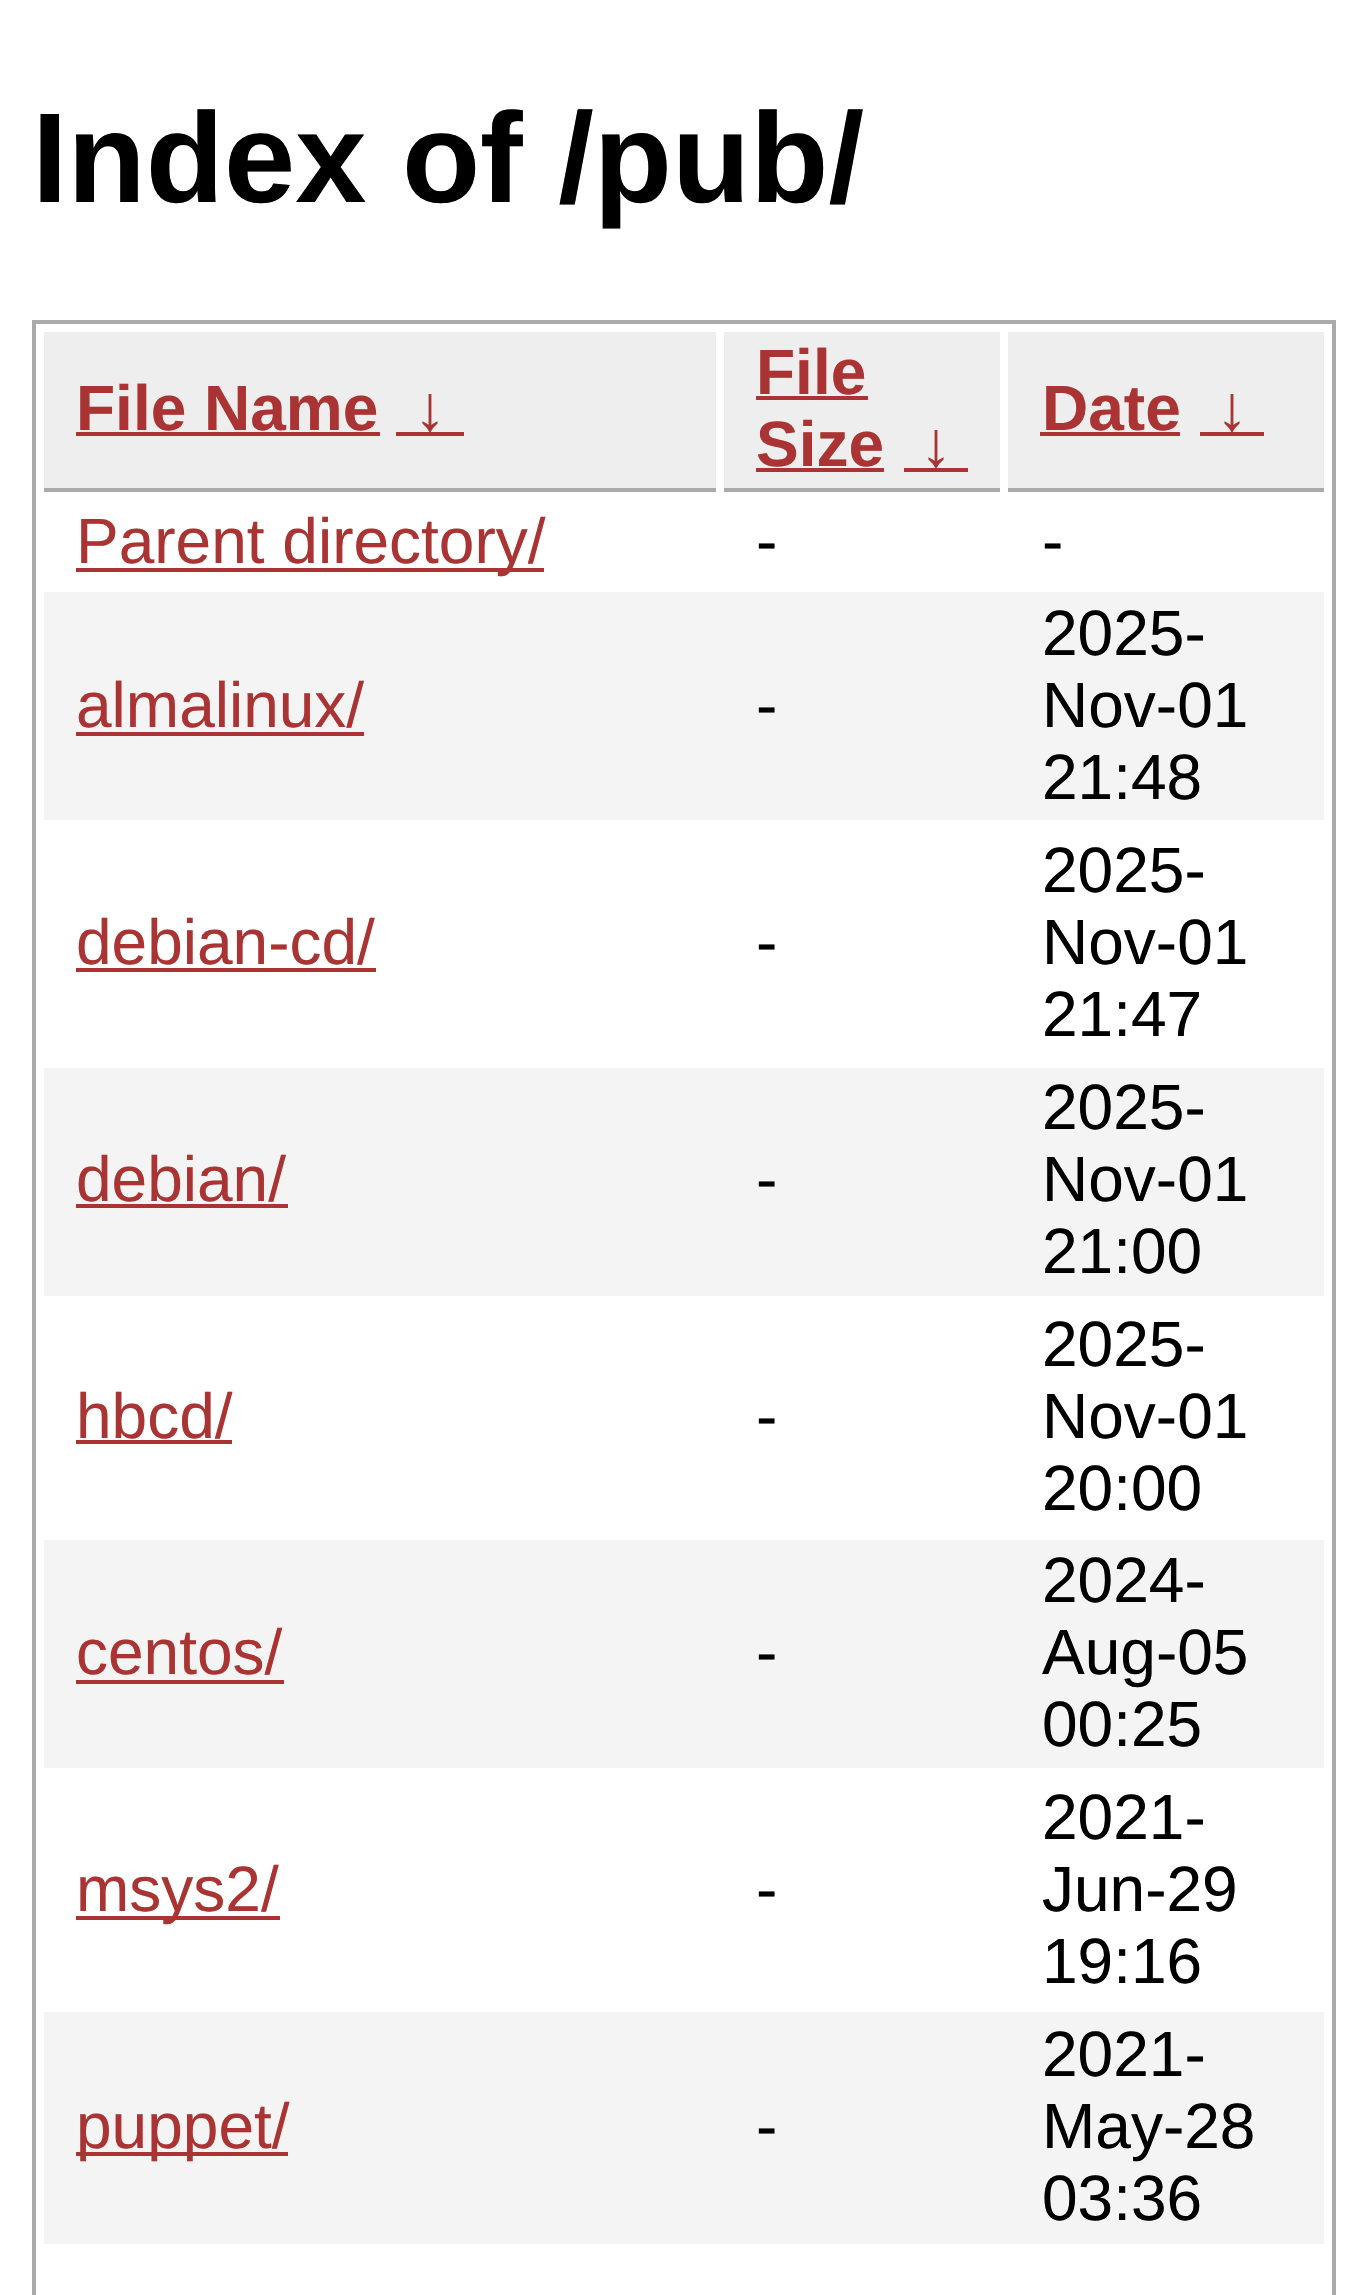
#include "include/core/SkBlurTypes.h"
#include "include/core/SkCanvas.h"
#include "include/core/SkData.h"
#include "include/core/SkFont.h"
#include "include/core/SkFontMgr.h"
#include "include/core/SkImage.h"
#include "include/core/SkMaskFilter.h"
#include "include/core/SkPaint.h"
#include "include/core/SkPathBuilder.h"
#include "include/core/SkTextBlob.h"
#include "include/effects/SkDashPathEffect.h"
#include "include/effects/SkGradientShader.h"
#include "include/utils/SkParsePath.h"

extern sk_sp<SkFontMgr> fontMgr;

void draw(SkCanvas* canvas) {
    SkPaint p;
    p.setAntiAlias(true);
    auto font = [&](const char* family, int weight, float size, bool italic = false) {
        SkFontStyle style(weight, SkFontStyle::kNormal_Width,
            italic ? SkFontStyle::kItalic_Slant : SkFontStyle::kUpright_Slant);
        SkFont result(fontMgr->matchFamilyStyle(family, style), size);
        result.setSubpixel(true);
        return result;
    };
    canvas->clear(0xFFFFFFFF);
    auto font1 = font("Liberation Sans", 700, 128);
    p.setColor(0xFF000000);
    canvas->drawString("Index of /pub/", 32, 202, font1, p);
    p.setStyle(SkPaint::kStroke_Style);
    p.setStrokeWidth(4);
    p.setColor(0xFFAAAAAA);
    canvas->drawRect(SkRect::MakeLTRB(34, 322, 1334, 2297), p);
    p.setStyle(SkPaint::kFill_Style);
    p.setColor(0xFFEEEEEE);
    canvas->drawRect(SkRect::MakeLTRB(44, 332, 716, 488), p);
    p.setColor(0xFFAAAAAA);
    canvas->drawRect(SkRect::MakeLTRB(44, 488, 716, 492), p);
    auto font2 = font("Liberation Sans", 700, 64);
    p.setColor(0xFFAA3333);
    canvas->drawString("File Name", 76, 430, font2, p);
    canvas->drawRect(SkRect::MakeLTRB(76, 432, 380, 436), p);
    canvas->drawString("↓", 414, 430, font2, p);
    {
        const struct { float l, t, r, b; SkColor color; } items[] = {
            {396, 432, 464, 436, 0xFFAA3333},
            {724, 332, 1000, 488, 0xFFEEEEEE},
            {724, 488, 1000, 492, 0xFFAAAAAA},
        };
        for (auto [l, t, r, b, color] : items) {
            p.setColor(color);
            canvas->drawRect(SkRect::MakeLTRB(l, t, r, b), p);
        }
    }
    p.setColor(0xFFAA3333);
    canvas->drawString("File", 756, 394, font2, p);
    canvas->drawRect(SkRect::MakeLTRB(756, 396, 868, 400), p);
    canvas->drawString("Size", 756, 466, font2, p);
    canvas->drawRect(SkRect::MakeLTRB(756, 468, 884, 472), p);
    canvas->drawString("↓", 920, 466, font2, p);
    {
        const struct { float l, t, r, b; SkColor color; } items[] = {
            {904, 468, 968, 472, 0xFFAA3333},
            {1008, 332, 1324, 488, 0xFFEEEEEE},
            {1008, 488, 1324, 492, 0xFFAAAAAA},
        };
        for (auto [l, t, r, b, color] : items) {
            p.setColor(color);
            canvas->drawRect(SkRect::MakeLTRB(l, t, r, b), p);
        }
    }
    p.setColor(0xFFAA3333);
    canvas->drawString("Date", 1042, 430, font2, p);
    canvas->drawRect(SkRect::MakeLTRB(1040, 432, 1180, 436), p);
    canvas->drawString("↓", 1216, 430, font2, p);
    canvas->drawRect(SkRect::MakeLTRB(1200, 432, 1264, 436), p);
    canvas->drawRect(SkRect::MakeLTRB(76, 568, 544, 572), p);
    auto font3 = font("Liberation Sans", 400, 64);
    canvas->drawString("Parent directory/", 76, 563, font3, p);
    p.setColor(0xFF000000);
    canvas->drawString("-", 756, 563, font3, p);
    canvas->drawString("-", 1042, 563, font3, p);
    p.setColor(0xFFF4F4F4);
    canvas->drawRect(SkRect::MakeLTRB(44, 592, 1324, 820), p);
    p.setColor(0xFFAA3333);
    canvas->drawString("almalinux/", 76, 727, font3, p);
    canvas->drawRect(SkRect::MakeLTRB(76, 732, 364, 736), p);
    p.setColor(0xFF000000);
    {
        const struct { const char* s; float x, y; } items[] = {
            {"-", 756, 727},
            {"2025-", 1042, 655},
            {"Nov-01", 1042, 727},
            {"21:48", 1042, 799},
        };
        for (auto [s, x, y] : items) {
            canvas->drawString(s, x, y, font3, p);
        }
    }
    p.setColor(0xFFAA3333);
    canvas->drawString("debian-cd/", 76, 964, font3, p);
    canvas->drawRect(SkRect::MakeLTRB(76, 968, 376, 972), p);
    p.setColor(0xFF000000);
    {
        const struct { const char* s; float x, y; } items[] = {
            {"-", 756, 964},
            {"2025-", 1042, 892},
            {"Nov-01", 1042, 964},
            {"21:47", 1042, 1036},
        };
        for (auto [s, x, y] : items) {
            canvas->drawString(s, x, y, font3, p);
        }
    }
    p.setColor(0xFFF4F4F4);
    canvas->drawRect(SkRect::MakeLTRB(44, 1068, 1324, 1296), p);
    p.setColor(0xFFAA3333);
    canvas->drawString("debian/", 76, 1201, font3, p);
    canvas->drawRect(SkRect::MakeLTRB(76, 1204, 288, 1208), p);
    p.setColor(0xFF000000);
    {
        const struct { const char* s; float x, y; } items[] = {
            {"-", 756, 1201},
            {"2025-", 1042, 1129},
            {"Nov-01", 1042, 1201},
            {"21:00", 1042, 1273},
        };
        for (auto [s, x, y] : items) {
            canvas->drawString(s, x, y, font3, p);
        }
    }
    p.setColor(0xFFAA3333);
    canvas->drawString("hbcd/", 76, 1438, font3, p);
    canvas->drawRect(SkRect::MakeLTRB(76, 1440, 232, 1444), p);
    p.setColor(0xFF000000);
    {
        const struct { const char* s; float x, y; } items[] = {
            {"-", 756, 1438},
            {"2025-", 1042, 1366},
            {"Nov-01", 1042, 1438},
            {"20:00", 1042, 1510},
        };
        for (auto [s, x, y] : items) {
            canvas->drawString(s, x, y, font3, p);
        }
    }
    p.setColor(0xFFF4F4F4);
    canvas->drawRect(SkRect::MakeLTRB(44, 1540, 1324, 1768), p);
    p.setColor(0xFFAA3333);
    canvas->drawString("centos/", 76, 1674, font3, p);
    canvas->drawRect(SkRect::MakeLTRB(76, 1680, 284, 1684), p);
    p.setColor(0xFF000000);
    {
        const struct { const char* s; float x, y; } items[] = {
            {"-", 756, 1674},
            {"2024-", 1042, 1602},
            {"Aug-05", 1042, 1674},
            {"00:25", 1042, 1746},
        };
        for (auto [s, x, y] : items) {
            canvas->drawString(s, x, y, font3, p);
        }
    }
    p.setColor(0xFFAA3333);
    canvas->drawRect(SkRect::MakeLTRB(76, 1916, 280, 1920), p);
    canvas->drawString("msys2/", 76, 1911, font3, p);
    p.setColor(0xFF000000);
    {
        const struct { const char* s; float x, y; } items[] = {
            {"-", 756, 1911},
            {"2021-", 1042, 1839},
            {"Jun-29", 1042, 1911},
            {"19:16", 1042, 1983},
        };
        for (auto [s, x, y] : items) {
            canvas->drawString(s, x, y, font3, p);
        }
    }
    p.setColor(0xFFF4F4F4);
    canvas->drawRect(SkRect::MakeLTRB(44, 2012, 1324, 2244), p);
    p.setColor(0xFFAA3333);
    canvas->drawRect(SkRect::MakeLTRB(76, 2152, 288, 2156), p);
    canvas->drawString("puppet/", 76, 2148, font3, p);
    p.setColor(0xFF000000);
    {
        const struct { const char* s; float x, y; } items[] = {
            {"-", 756, 2148},
            {"2021-", 1042, 2076},
            {"May-28", 1042, 2148},
            {"03:36", 1042, 2220},
        };
        for (auto [s, x, y] : items) {
            canvas->drawString(s, x, y, font3, p);
        }
    }
}
